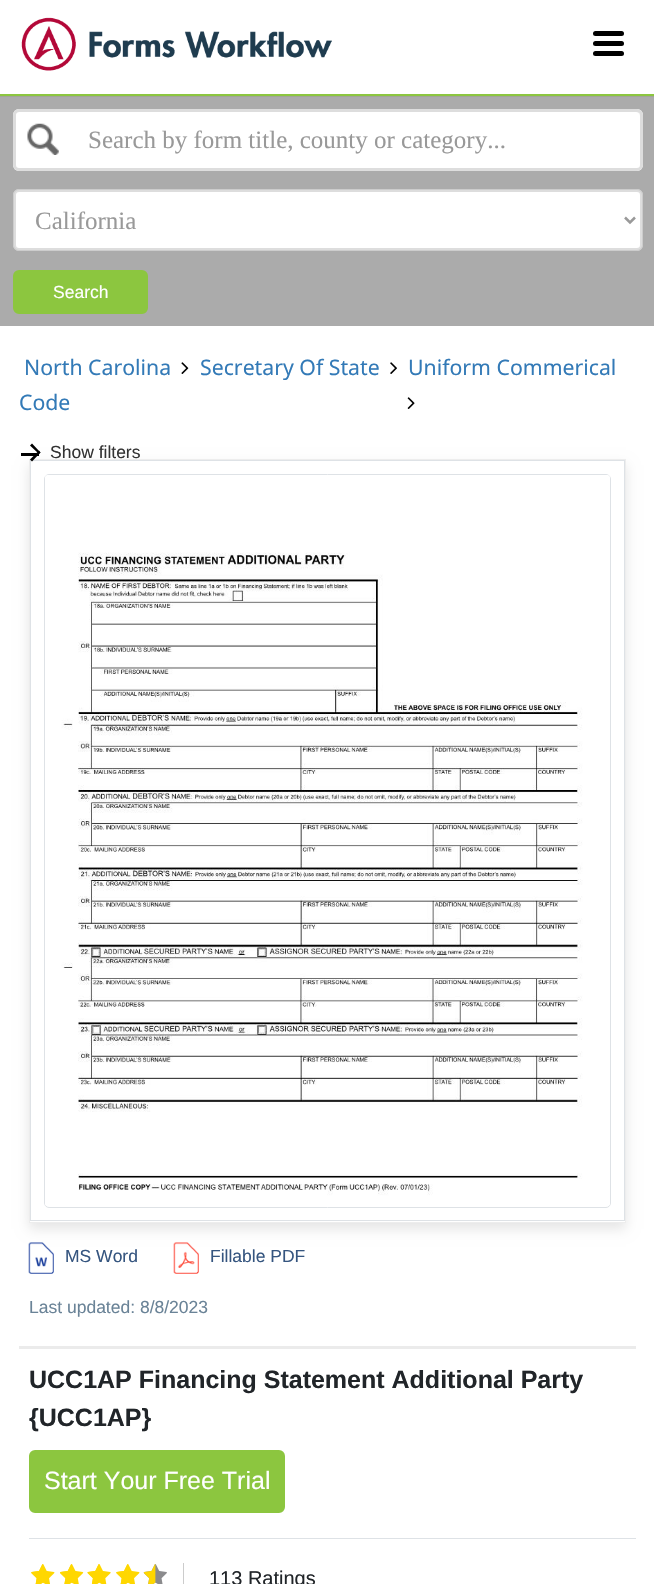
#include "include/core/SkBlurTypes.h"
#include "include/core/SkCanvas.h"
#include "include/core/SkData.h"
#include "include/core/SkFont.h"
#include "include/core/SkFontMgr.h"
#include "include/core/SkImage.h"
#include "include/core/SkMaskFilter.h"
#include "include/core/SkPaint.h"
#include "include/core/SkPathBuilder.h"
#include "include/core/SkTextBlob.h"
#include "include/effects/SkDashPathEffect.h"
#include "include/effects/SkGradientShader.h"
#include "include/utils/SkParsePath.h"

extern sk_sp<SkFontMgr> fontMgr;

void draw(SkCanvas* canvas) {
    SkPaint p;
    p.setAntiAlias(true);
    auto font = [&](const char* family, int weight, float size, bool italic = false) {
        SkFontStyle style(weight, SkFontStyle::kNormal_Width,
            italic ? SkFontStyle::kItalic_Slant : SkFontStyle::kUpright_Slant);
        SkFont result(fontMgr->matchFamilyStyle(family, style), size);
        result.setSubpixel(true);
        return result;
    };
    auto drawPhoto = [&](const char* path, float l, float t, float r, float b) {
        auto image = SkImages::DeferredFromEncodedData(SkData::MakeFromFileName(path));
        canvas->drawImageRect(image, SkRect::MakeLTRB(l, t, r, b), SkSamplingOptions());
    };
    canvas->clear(0xFFFFFFFF);
    {
        const struct { float l, t, r, b; SkColor color; } items[] = {
            {0, 97, 654, 326, 0xFFABABAB},
            {0, 94, 654, 96, 0xFF8CC63F},
            {0, 96, 654, 97, 0xFFA0A698},
        };
        for (auto [l, t, r, b, color] : items) {
            p.setColor(color);
            canvas->drawRect(SkRect::MakeLTRB(l, t, r, b), p);
        }
    }
    drawPhoto("media/1.png", 21, 17, 332, 71);
    p.setColor(0xFF000000);
    canvas->drawRoundRect(SkRect::MakeLTRB(593, 41, 624, 46), 2.5f, 2.5f, p);
    canvas->drawRoundRect(SkRect::MakeLTRB(593, 31, 624, 36), 2.5f, 2.5f, p);
    canvas->drawRoundRect(SkRect::MakeLTRB(593, 51, 624, 56), 2.5f, 2.5f, p);
    p.setColor(0xFFFFFFFF);
    canvas->drawRoundRect(SkRect::MakeLTRB(13, 109, 643, 171), 6, 6, p);
    drawPhoto("media/2.png", 27, 123, 59, 155);
    p.setColor(0xFFECECEC);
    canvas->drawPath(SkPathBuilder().moveTo(19, 112).lineTo(636, 112).cubicTo(638, 112, 640, 114, 640, 116).cubicTo(640, 113, 639, 111, 636, 111).lineTo(19, 111).cubicTo(16, 111, 15, 113, 15, 116).cubicTo(15, 114, 17, 112, 19, 112).close().detach(), p);
    p.setStyle(SkPaint::kStroke_Style);
    p.setStrokeWidth(3);
    p.setColor(0xFFDDDDDD);
    canvas->drawRoundRect(SkRect::MakeLTRB(14.5f, 110.5f, 641.5f, 169.5f), 4.5f, 4.5f, p);
    auto font1 = font("Liberation Serif", 400, 25);
    p.setStyle(SkPaint::kFill_Style);
    p.setColor(0xFF999999);
    canvas->drawString("Search by form title, county or category...", 88, 148, font1, p);
    p.setColor(0xFFFFFFFF);
    canvas->drawRoundRect(SkRect::MakeLTRB(14.5f, 190.5f, 641.5f, 249.5f), 4.5f, 4.5f, p);
    p.setStyle(SkPaint::kStroke_Style);
    p.setColor(0xFFDDDDDD);
    canvas->drawRoundRect(SkRect::MakeLTRB(14.5f, 190.5f, 641.5f, 249.5f), 4.5f, 4.5f, p);
    p.setStrokeWidth(2.5f);
    p.setColor(0xFF999999);
    canvas->drawPath(SkPathBuilder().moveTo(625, 217.5f).lineTo(630, 222.5f).lineTo(635, 217.5f).detach(), p);
    p.setStrokeWidth(1);
    p.setColor(0xFFCCCCCC);
    canvas->drawRoundRect(SkRect::MakeLTRB(13.5f, 189.5f, 642.5f, 250.5f), 5.5f, 5.5f, p);
    p.setStyle(SkPaint::kFill_Style);
    p.setColor(0xFF999999);
    canvas->drawString("California", 35, 229, font1, p);
    p.setColor(0xFF8CC63F);
    canvas->drawRoundRect(SkRect::MakeLTRB(14.5f, 271.5f, 146.5f, 312.5f), 4.5f, 4.5f, p);
    p.setStyle(SkPaint::kStroke_Style);
    p.setStrokeWidth(3);
    canvas->drawRoundRect(SkRect::MakeLTRB(14.5f, 271.5f, 146.5f, 312.5f), 4.5f, 4.5f, p);
    auto font2 = font("Liberation Sans", 400, 17.5f);
    p.setStyle(SkPaint::kFill_Style);
    p.setColor(0xFFFFFFFF);
    canvas->drawString("Search", 53, 298, font2, p);
    auto font3 = font("Noto Sans", 400, 21.25f);
    p.setColor(0xFF337AB7);
    canvas->drawString("Uniform Commerical", 408, 375, font3, p);
    canvas->drawString("Code", 19, 410, font3, p);
    drawPhoto("media/3.png", 407, 397, 415, 409);
    canvas->drawString("North Carolina", 24, 375, font3, p);
    drawPhoto("media/4.png", 181, 362, 189, 374);
    canvas->drawString("Secretary Of State", 200, 375, font3, p);
    drawPhoto("media/5.png", 390, 362, 397, 374);
    drawPhoto("media/7.png", 28, 1242, 54, 1274);
    drawPhoto("media/8.png", 173, 1242, 199, 1274);
    canvas->save();
    canvas->clipPath(SkPathBuilder(SkPathFillType::kEvenOdd).moveTo(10, 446).lineTo(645, 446).lineTo(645, 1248).lineTo(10, 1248).close().moveTo(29, 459).lineTo(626, 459).lineTo(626, 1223).lineTo(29, 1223).close().detach(), true);
    p.setColor(0x1A000000);
    p.setMaskFilter(SkMaskFilter::MakeBlur(kNormal_SkBlurStyle, 6));
    canvas->drawRect(SkRect::MakeLTRB(29, 465, 626, 1229), p);
    p.setMaskFilter(nullptr);
    canvas->restore();
    p.setStyle(SkPaint::kStroke_Style);
    p.setStrokeWidth(1);
    p.setColor(0xFFEDEDED);
    canvas->drawRect(SkRect::MakeLTRB(29.5f, 459.5f, 625.5f, 1222.5f), p);
    p.setColor(0xFFDEE2E6);
    canvas->drawRect(SkRect::MakeLTRB(30.5f, 460.5f, 624.5f, 1220.5f), p);
    canvas->drawRoundRect(SkRect::MakeLTRB(44.5f, 474.5f, 610.5f, 1207.5f), 4.5f, 4.5f, p);
    drawPhoto("media/6.png", 45, 475, 610, 1206);
    p.setStyle(SkPaint::kFill_Style);
    p.setColor(0xFF35557F);
    canvas->drawString("MS Word", 65, 1262, font2, p);
    canvas->drawString("Fillable PDF", 210, 1262, font2, p);
    p.setColor(0xFF6A8397);
    canvas->drawString("Last updated: 8/8/2023", 29, 1313, font2, p);
    p.setColor(0xFFEBEBEB);
    canvas->drawRect(SkRect::MakeLTRB(19, 1346, 636, 1349), p);
    auto font4 = font("Liberation Sans", 700, 25);
    p.setColor(0xFF212529);
    canvas->drawString("UCC1AP Financing Statement Additional Party", 29, 1388, font4, p);
    canvas->drawString("{UCC1AP}", 29, 1426, font4, p);
    p.setColor(0xFF8CC63F);
    canvas->drawRoundRect(SkRect::MakeLTRB(30.5f, 1451.5f, 283.5f, 1511.5f), 4.5f, 4.5f, p);
    p.setStyle(SkPaint::kStroke_Style);
    p.setStrokeWidth(3);
    canvas->drawRoundRect(SkRect::MakeLTRB(30.5f, 1451.5f, 283.5f, 1511.5f), 4.5f, 4.5f, p);
    auto font5 = font("Liberation Sans", 400, 25);
    p.setStyle(SkPaint::kFill_Style);
    p.setColor(0xFFFFFFFF);
    canvas->drawString("Start Your Free Trial", 44, 1489, font5, p);
    p.setColor(0xFFDEE2E6);
    canvas->drawRect(SkRect::MakeLTRB(29, 1538, 636, 1539), p);
    drawPhoto("media/9.png", 31, 1564, 55, 1584);
    drawPhoto("media/10.png", 31, 1564, 43, 1584);
    drawPhoto("media/11.png", 60, 1564, 84, 1584);
    drawPhoto("media/12.png", 60, 1564, 72, 1584);
    drawPhoto("media/13.png", 87, 1564, 111, 1584);
    drawPhoto("media/14.png", 87, 1564, 100, 1584);
    drawPhoto("media/9.png", 116, 1564, 140, 1584);
    drawPhoto("media/10.png", 116, 1564, 128, 1584);
    drawPhoto("media/15.png", 143, 1564, 167, 1584);
    drawPhoto("media/16.png", 143, 1564, 156, 1584);
    p.setColor(0xFFCCCCCC);
    canvas->drawRect(SkRect::MakeLTRB(183, 1563, 184, 1584), p);
    auto font6 = font("Liberation Sans", 400, 20);
    p.setColor(0xFF212529);
    canvas->drawString("113 Ratings", 209, 1585, font6, p);
    p.setColor(0xFF000000);
    canvas->drawPath(SkPathBuilder().moveTo(40.5f, 452.5f).lineTo(32, 461.5f).lineTo(30, 459.5f).lineTo(39, 450.5f).close().detach(), p);
    canvas->drawPath(SkPathBuilder().moveTo(40.5f, 452.5f).lineTo(39, 454).lineTo(30, 445.5f).lineTo(32, 443.5f).close().detach(), p);
    canvas->drawRect(SkRect::MakeLTRB(21, 453, 39, 456), p);
    p.setColor(0xFF333333);
    canvas->drawString("Show filters", 50, 458, font2, p);
}
